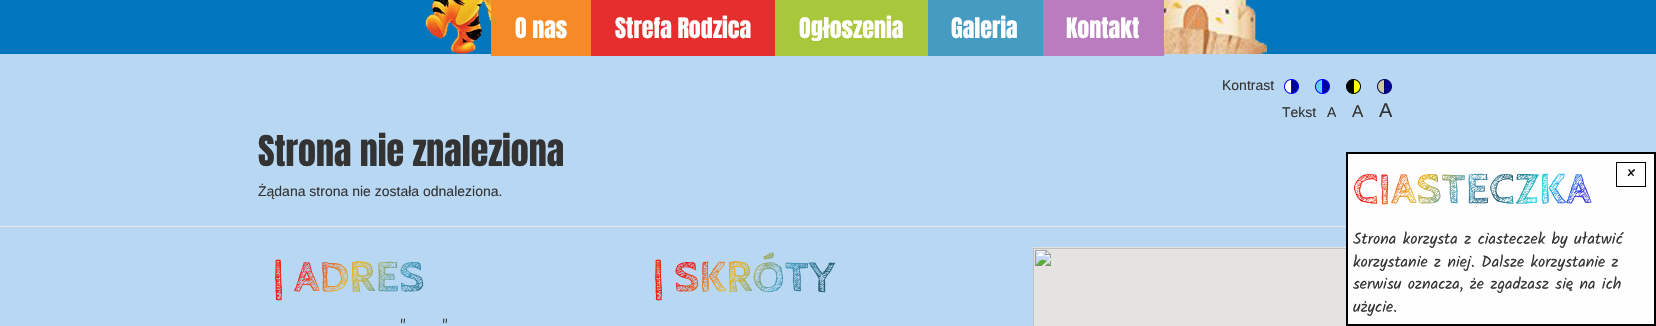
#include "include/core/SkBlurTypes.h"
#include "include/core/SkCanvas.h"
#include "include/core/SkData.h"
#include "include/core/SkFont.h"
#include "include/core/SkFontMgr.h"
#include "include/core/SkImage.h"
#include "include/core/SkMaskFilter.h"
#include "include/core/SkPaint.h"
#include "include/core/SkPathBuilder.h"
#include "include/core/SkTextBlob.h"
#include "include/effects/SkDashPathEffect.h"
#include "include/effects/SkGradientShader.h"
#include "include/utils/SkParsePath.h"

extern sk_sp<SkFontMgr> fontMgr;

void draw(SkCanvas* canvas) {
    SkPaint p;
    p.setAntiAlias(true);
    auto font = [&](const char* family, int weight, float size, bool italic = false) {
        SkFontStyle style(weight, SkFontStyle::kNormal_Width,
            italic ? SkFontStyle::kItalic_Slant : SkFontStyle::kUpright_Slant);
        SkFont result(fontMgr->matchFamilyStyle(family, style), size);
        result.setSubpixel(true);
        return result;
    };
    auto drawPhoto = [&](const char* path, float l, float t, float r, float b) {
        auto image = SkImages::DeferredFromEncodedData(SkData::MakeFromFileName(path));
        canvas->drawImageRect(image, SkRect::MakeLTRB(l, t, r, b), SkSamplingOptions());
    };
    canvas->clear(0xFFB8D7F2);
    p.setColor(0xFF0277BD);
    canvas->drawRect(SkRect::MakeLTRB(0, 0, 1656, 54), p);
    drawPhoto("media/1.png", 425, 0, 1267, 54);
    p.setColor(0xFFF68A26);
    canvas->drawRect(SkRect::MakeLTRB(491, 0, 591, 56), p);
    auto font1 = font("Anton", 400, 24);
    p.setColor(0xFFFFFFFF);
    canvas->drawString("O nas", 515, 38, font1, p);
    p.setColor(0xFFE52F2F);
    canvas->drawRect(SkRect::MakeLTRB(591, 0, 775, 56), p);
    p.setColor(0xFFFFFFFF);
    canvas->drawString("Strefa Rodzica", 615, 38, font1, p);
    p.setColor(0xFFA8C73A);
    canvas->drawRect(SkRect::MakeLTRB(775, 0, 928, 56), p);
    p.setColor(0xFFFFFFFF);
    canvas->drawString("Ogłoszenia", 799, 38, font1, p);
    p.setColor(0xFF459CC0);
    canvas->drawRect(SkRect::MakeLTRB(928, 0, 1043, 56), p);
    p.setColor(0xFFFFFFFF);
    canvas->drawString("Galeria", 951, 38, font1, p);
    p.setColor(0xFFB97CBE);
    canvas->drawRect(SkRect::MakeLTRB(1043, 0, 1164, 56), p);
    p.setColor(0xFFFFFFFF);
    canvas->drawString("Kontakt", 1066, 38, font1, p);
    auto font2 = font("Liberation Sans", 400, 14);
    p.setColor(0xFF333333);
    canvas->drawString("Kontrast", 1222, 90, font2, p);
    drawPhoto("media/2.png", 1284, 79, 1299, 94);
    drawPhoto("media/3.png", 1315, 79, 1330, 94);
    drawPhoto("media/4.png", 1346, 79, 1361, 94);
    drawPhoto("media/5.png", 1377, 79, 1392, 94);
    canvas->drawString("Tekst", 1282, 117, font2, p);
    canvas->drawString("A", 1327, 117, font2, p);
    auto font3 = font("Liberation Sans", 400, 17);
    canvas->drawString("A", 1352, 117, font3, p);
    auto font4 = font("Liberation Sans", 400, 20);
    canvas->drawString("A", 1379, 117, font4, p);
    auto font5 = font("Anton", 400, 36);
    canvas->drawString("Strona nie znaleziona", 258, 166, font5, p);
    canvas->drawString("Żądana strona nie została odnaleziona.", 258, 196, font2, p);
    p.setColor(0xFFE5E5E5);
    canvas->drawRect(SkRect::MakeLTRB(0, 226, 1346, 227), p);
    auto font6 = font("Cabin Sketch", 700, 45);
    {
        const SkColor colors[] = {0xFFFF2400, 0xFFE81D1D, 0xFFE8B71D, 0xFF459CC0, 0xFF22576E, 0xFF1DDDE8, 0xFF2B1DE8, 0xFF459CC0, 0xFFDD00F3};
        const float stops[] = {0, 0.12f, 0.25f, 0.38f, 0.5f, 0.62f, 0.75f, 0.88f, 1};
        const SkPoint ends[] = {{313, 188}, {583, 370}};
        p.setShader(SkGradientShader::MakeLinear(ends, colors, stops, 9, SkTileMode::kClamp));
        p.setAlpha(255);
    }
    canvas->drawString("| ADRES", 273, 291, font6, p);
    auto font7 = font("Kalam", 400, 16);
    p.setShader(nullptr);
    p.setColor(0xFF333333);
    canvas->drawString("\"", 400, 332, font7, p);
    canvas->drawString("\"", 442, 332, font7, p);
    {
        const SkColor colors[] = {0xFFFF2400, 0xFFE81D1D, 0xFFE8B71D, 0xFF459CC0, 0xFF22576E, 0xFF1DDDE8, 0xFF2B1DE8, 0xFF459CC0, 0xFFDD00F3};
        const float stops[] = {0, 0.12f, 0.25f, 0.38f, 0.5f, 0.62f, 0.75f, 0.88f, 1};
        const SkPoint ends[] = {{693, 188}, {963, 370}};
        p.setShader(SkGradientShader::MakeLinear(ends, colors, stops, 9, SkTileMode::kClamp));
        p.setAlpha(255);
    }
    canvas->drawString("| SKRÓTY", 653, 291, font6, p);
    drawPhoto("media/6.png", 1033, 247, 1346, 326);
    p.setShader(nullptr);
    p.setColor(0xFFFEFEFE);
    canvas->drawRect(SkRect::MakeLTRB(1347, 153, 1655, 325), p);
    p.setStyle(SkPaint::kStroke_Style);
    p.setStrokeWidth(2);
    p.setColor(0xFF000000);
    canvas->drawRect(SkRect::MakeLTRB(1347, 153, 1655, 325), p);
    p.setStyle(SkPaint::kFill_Style);
    {
        const SkColor colors[] = {0xFFFF2400, 0xFFE81D1D, 0xFFE8B71D, 0xFF459CC0, 0xFF22576E, 0xFF1DDDE8, 0xFF2B1DE8, 0xFF459CC0, 0xFFDD00F3};
        const float stops[] = {0, 0.12f, 0.25f, 0.38f, 0.5f, 0.62f, 0.75f, 0.88f, 1};
        const SkPoint ends[] = {{1385, 112}, {1617, 269}};
        p.setShader(SkGradientShader::MakeLinear(ends, colors, stops, 9, SkTileMode::kClamp));
        p.setAlpha(255);
    }
    canvas->drawString("CIASTECZKA", 1353, 203, font6, p);
    p.setShader(nullptr);
    p.setColor(0xFF333333);
    {
        const struct { const char* s; float x, y; } items[] = {
            {"Strona korzysta z ciasteczek by ułatwić", 1353, 244},
            {"korzystanie z niej. Dalsze korzystanie z", 1353, 267},
            {"serwisu oznacza, że zgadzasz się na ich", 1353, 289},
            {"użycie.", 1353, 312},
        };
        for (auto [s, x, y] : items) {
            canvas->drawString(s, x, y, font7, p);
        }
    }
    p.setStyle(SkPaint::kStroke_Style);
    p.setStrokeWidth(1);
    p.setColor(0xFF000000);
    canvas->drawRect(SkRect::MakeLTRB(1616.5f, 162.5f, 1645.5f, 186.5f), p);
    p.setStyle(SkPaint::kFill_Style);
    canvas->drawString("×", 1627, 178, font7, p);
}
